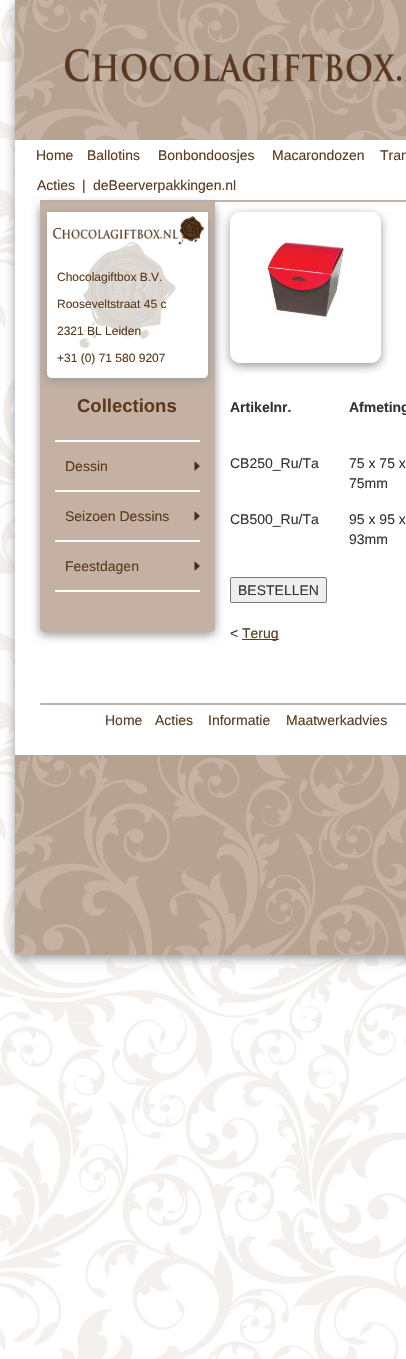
#include "include/core/SkBlurTypes.h"
#include "include/core/SkCanvas.h"
#include "include/core/SkData.h"
#include "include/core/SkFont.h"
#include "include/core/SkFontMgr.h"
#include "include/core/SkImage.h"
#include "include/core/SkMaskFilter.h"
#include "include/core/SkPaint.h"
#include "include/core/SkPathBuilder.h"
#include "include/core/SkTextBlob.h"
#include "include/effects/SkDashPathEffect.h"
#include "include/effects/SkGradientShader.h"
#include "include/utils/SkParsePath.h"

extern sk_sp<SkFontMgr> fontMgr;

void draw(SkCanvas* canvas) {
    SkPaint p;
    p.setAntiAlias(true);
    auto font = [&](const char* family, int weight, float size, bool italic = false) {
        SkFontStyle style(weight, SkFontStyle::kNormal_Width,
            italic ? SkFontStyle::kItalic_Slant : SkFontStyle::kUpright_Slant);
        SkFont result(fontMgr->matchFamilyStyle(family, style), size);
        result.setSubpixel(true);
        return result;
    };
    auto drawPhoto = [&](const char* path, float l, float t, float r, float b) {
        auto image = SkImages::DeferredFromEncodedData(SkData::MakeFromFileName(path));
        canvas->drawImageRect(image, SkRect::MakeLTRB(l, t, r, b), SkSamplingOptions());
    };
    canvas->clear(0xFFFFFFFF);
    drawPhoto("media/1.png", 0, 6, 406, 1359);
    p.setColor(0xFF999999);
    p.setMaskFilter(SkMaskFilter::MakeBlur(kNormal_SkBlurStyle, 5));
    canvas->drawRect(SkRect::MakeLTRB(15, 3, 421, 958), p);
    p.setMaskFilter(nullptr);
    p.setColor(0xFFFFFFFF);
    canvas->drawRect(SkRect::MakeLTRB(15, 140, 406, 755), p);
    p.setColor(0xFFB6A291);
    canvas->drawRect(SkRect::MakeLTRB(15, 0, 406, 140), p);
    drawPhoto("media/2.png", 15, 0, 406, 140);
    drawPhoto("media/3.png", 64, 48, 406, 82);
    auto font1 = font("Liberation Sans", 400, 14);
    p.setColor(0xFF5C3A1E);
    {
        const struct { const char* s; float x, y; } items[] = {
            {"Home", 36, 160},
            {"Ballotins", 87, 160},
            {"Bonbondoosjes", 158, 160},
            {"Macarondozen", 272, 160},
            {"Tran", 380, 160},
            {"Acties", 37, 190},
            {"|", 82, 190},
            {"deBeerverpakkingen.nl", 93, 190},
        };
        for (auto [s, x, y] : items) {
            canvas->drawString(s, x, y, font1, p);
        }
    }
    p.setColor(0xFFBDB3AA);
    canvas->drawRect(SkRect::MakeLTRB(40, 200, 406, 202), p);
    canvas->drawRect(SkRect::MakeLTRB(40, 703, 406, 705), p);
    p.setColor(0xFF999999);
    p.setMaskFilter(SkMaskFilter::MakeBlur(kNormal_SkBlurStyle, 5));
    canvas->drawRoundRect(SkRect::MakeLTRB(40, 205, 215, 635), 5, 5, p);
    p.setMaskFilter(nullptr);
    p.setColor(0xFFC4B1A3);
    canvas->drawPath(SkPathBuilder().moveTo(40, 202).lineTo(215, 202).lineTo(215, 627).cubicTo(215, 630, 213, 632, 210, 632).lineTo(45, 632).cubicTo(42, 632, 40, 630, 40, 627).close().detach(), p);
    p.setColor(0xFF999999);
    p.setMaskFilter(SkMaskFilter::MakeBlur(kNormal_SkBlurStyle, 5));
    canvas->drawRoundRect(SkRect::MakeLTRB(47, 215, 208, 381), 5, 5, p);
    p.setMaskFilter(nullptr);
    p.setColor(0xFFFFFFFF);
    canvas->drawPath(SkPathBuilder().moveTo(47, 212).lineTo(208, 212).lineTo(208, 373).cubicTo(208, 376, 206, 378, 203, 378).lineTo(52, 378).cubicTo(49, 378, 47, 376, 47, 373).close().detach(), p);
    drawPhoto("media/4.png", 79, 242, 176, 349);
    drawPhoto("media/5.png", 52, 216, 204, 245);
    auto font2 = font("Liberation Sans", 400, 12);
    p.setColor(0xFF5C3A1E);
    {
        const struct { const char* s; float x, y; } items[] = {
            {"Chocolagiftbox B.V.", 57, 281},
            {"Rooseveltstraat 45 c", 57, 308},
            {"2321 BL Leiden", 57, 335},
            {"+31 (0) 71 580 9207", 57, 362},
        };
        for (auto [s, x, y] : items) {
            canvas->drawString(s, x, y, font2, p);
        }
    }
    auto font3 = font("Liberation Sans", 700, 18.5f);
    canvas->drawString("Collections", 77, 412, font3, p);
    p.setColor(0xFFFFFFFF);
    canvas->drawRect(SkRect::MakeLTRB(55, 590, 200, 592), p);
    canvas->drawRect(SkRect::MakeLTRB(55, 440, 200, 442), p);
    drawPhoto("media/6.png", 194, 461, 200, 471);
    p.setColor(0xFF5C3A1E);
    canvas->drawString("Dessin", 65, 471, font1, p);
    p.setColor(0xFFFFFFFF);
    canvas->drawRect(SkRect::MakeLTRB(55, 490, 200, 492), p);
    drawPhoto("media/6.png", 194, 511, 200, 521);
    p.setColor(0xFF5C3A1E);
    canvas->drawString("Seizoen Dessins", 65, 521, font1, p);
    p.setColor(0xFFFFFFFF);
    canvas->drawRect(SkRect::MakeLTRB(55, 540, 200, 542), p);
    drawPhoto("media/6.png", 194, 561, 200, 571);
    p.setColor(0xFF5C3A1E);
    canvas->drawString("Feestdagen", 65, 571, font1, p);
    canvas->save();
    canvas->clipPath(SkPathBuilder(SkPathFillType::kEvenOdd).moveTo(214, 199).lineTo(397, 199).lineTo(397, 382).lineTo(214, 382).close().moveTo(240, 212).lineTo(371, 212).cubicTo(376.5f, 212, 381, 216.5f, 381, 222).lineTo(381, 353).cubicTo(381, 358.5f, 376.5f, 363, 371, 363).lineTo(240, 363).cubicTo(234.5f, 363, 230, 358.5f, 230, 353).lineTo(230, 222).cubicTo(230, 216.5f, 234.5f, 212, 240, 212).close().detach(), true);
    p.setColor(0xFF999999);
    p.setMaskFilter(SkMaskFilter::MakeBlur(kNormal_SkBlurStyle, 5));
    canvas->drawRoundRect(SkRect::MakeLTRB(230, 215, 381, 366), 10, 10, p);
    p.setMaskFilter(nullptr);
    canvas->restore();
    drawPhoto("media/7.png", 264, 239, 347, 317);
    auto font4 = font("Liberation Sans", 700, 14);
    p.setColor(0xFF333333);
    canvas->drawString("Artikelnr.", 230, 412, font4, p);
    canvas->drawString("Afmeting", 349, 412, font4, p);
    {
        const struct { const char* s; float x, y; } items[] = {
            {"CB250_Ru/Ta", 230, 468},
            {"75 x 75 x", 349, 468},
            {"75mm", 349, 488},
            {"CB500_Ru/Ta", 230, 524},
            {"95 x 95 x", 349, 524},
            {"93mm", 349, 544},
        };
        for (auto [s, x, y] : items) {
            canvas->drawString(s, x, y, font1, p);
        }
    }
    p.setColor(0xFFEFEFEF);
    canvas->drawRoundRect(SkRect::MakeLTRB(230.5f, 577.5f, 326.5f, 602.5f), 1.5f, 1.5f, p);
    p.setStyle(SkPaint::kStroke_Style);
    p.setStrokeWidth(1);
    p.setColor(0xFF767676);
    canvas->drawRoundRect(SkRect::MakeLTRB(230.5f, 577.5f, 326.5f, 602.5f), 1.5f, 1.5f, p);
    p.setStyle(SkPaint::kFill_Style);
    p.setColor(0xFF333333);
    canvas->drawString("BESTELLEN", 238, 595, font1, p);
    canvas->drawString("<", 230, 638, font1, p);
    p.setColor(0xFF5C3A1E);
    canvas->drawRect(SkRect::MakeLTRB(242, 639, 279, 640), p);
    {
        const struct { const char* s; float x, y; } items[] = {
            {"Terug", 242, 638},
            {"Home", 105, 725},
            {"Acties", 155, 725},
            {"Informatie", 208, 725},
            {"Maatwerkadvies", 286, 725},
        };
        for (auto [s, x, y] : items) {
            canvas->drawString(s, x, y, font1, p);
        }
    }
    p.setColor(0xFFB6A291);
    canvas->drawRect(SkRect::MakeLTRB(15, 755, 406, 955), p);
    drawPhoto("media/8.png", 15, 755, 406, 955);
}
